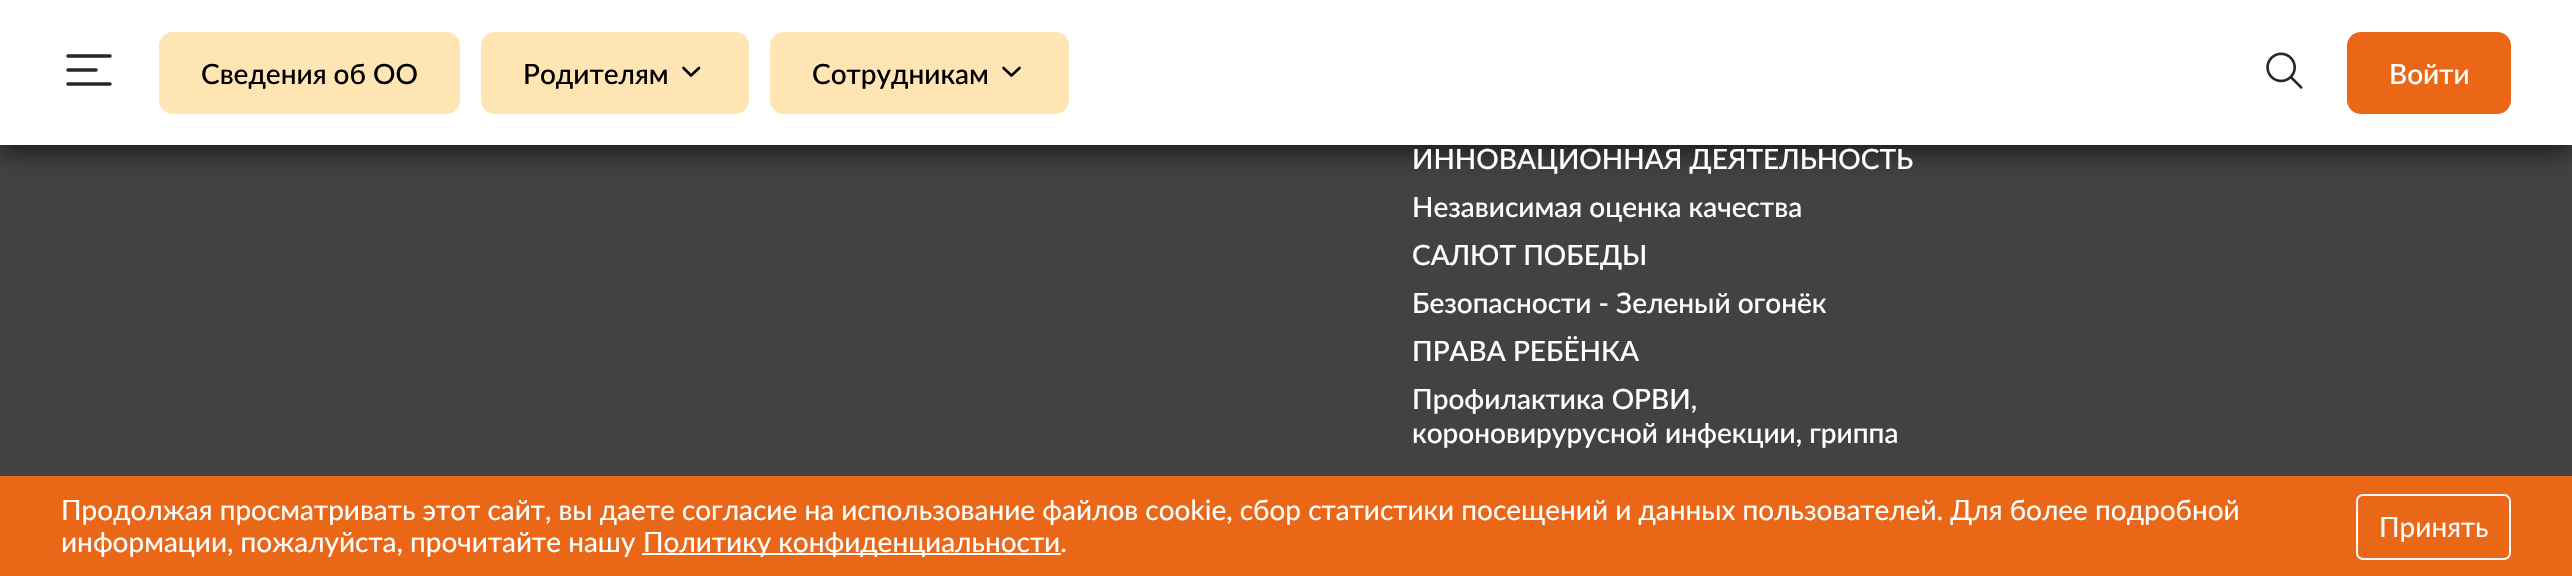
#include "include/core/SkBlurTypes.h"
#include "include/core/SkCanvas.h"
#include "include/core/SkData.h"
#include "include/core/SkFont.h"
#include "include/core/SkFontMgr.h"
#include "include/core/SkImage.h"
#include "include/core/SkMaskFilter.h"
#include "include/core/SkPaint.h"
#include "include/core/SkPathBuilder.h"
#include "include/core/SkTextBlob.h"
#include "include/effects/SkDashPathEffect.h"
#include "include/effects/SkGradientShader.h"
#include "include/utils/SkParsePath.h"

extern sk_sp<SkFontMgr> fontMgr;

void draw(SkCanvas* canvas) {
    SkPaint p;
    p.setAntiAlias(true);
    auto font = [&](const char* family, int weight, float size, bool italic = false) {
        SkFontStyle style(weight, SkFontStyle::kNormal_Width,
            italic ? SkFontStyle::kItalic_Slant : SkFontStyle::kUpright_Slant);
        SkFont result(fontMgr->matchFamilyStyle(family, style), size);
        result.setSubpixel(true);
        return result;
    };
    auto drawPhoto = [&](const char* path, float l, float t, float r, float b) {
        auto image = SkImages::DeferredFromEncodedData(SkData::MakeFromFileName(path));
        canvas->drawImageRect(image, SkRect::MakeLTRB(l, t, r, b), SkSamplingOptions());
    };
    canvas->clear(0xFF424242);
    p.setColor(0xBF000000);
    p.setMaskFilter(SkMaskFilter::MakeBlur(kNormal_SkBlurStyle, 13));
    canvas->drawRect(SkRect::MakeLTRB(0, 4, 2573, 149), p);
    p.setMaskFilter(nullptr);
    p.setColor(0xFFFFFFFF);
    canvas->drawRect(SkRect::MakeLTRB(0, 0, 2572, 145), p);
    p.setStyle(SkPaint::kStroke_Style);
    p.setStrokeWidth(3.5f);
    p.setStrokeCap(SkPaint::kRound_Cap);
    p.setStrokeJoin(SkPaint::kRound_Join);
    p.setColor(0xFF23272F);
    canvas->drawPath(SkPathBuilder().moveTo(68, 70).lineTo(96, 70).moveTo(68, 56).lineTo(110, 56).moveTo(68, 84).lineTo(110, 84).detach(), p);
    p.setStyle(SkPaint::kFill_Style);
    p.setColor(0xFFFFE5B4);
    canvas->drawRoundRect(SkRect::MakeLTRB(159, 32, 460, 114), 14, 14, p);
    auto font1 = font("Lato", 500, 28);
    p.setColor(0xFF000000);
    canvas->drawString("Сведения об ОО", 201, 84, font1, p);
    p.setColor(0xFFFFE5B4);
    canvas->drawRoundRect(SkRect::MakeLTRB(481, 32, 749, 114), 14, 14, p);
    p.setColor(0xFF000000);
    canvas->drawString("Родителям", 523, 84, font1, p);
    p.setStyle(SkPaint::kStroke_Style);
    p.setStrokeWidth(2.6f);
    canvas->drawPath(SkPathBuilder().moveTo(683.5f, 68).lineTo(691, 75.5f).lineTo(699, 68).detach(), p);
    p.setStyle(SkPaint::kFill_Style);
    p.setColor(0xFFFFE5B4);
    canvas->drawRoundRect(SkRect::MakeLTRB(770, 32, 1069, 114), 14, 14, p);
    p.setColor(0xFF000000);
    canvas->drawString("Сотрудникам", 812, 84, font1, p);
    p.setStyle(SkPaint::kStroke_Style);
    canvas->drawPath(SkPathBuilder().moveTo(1003.5f, 68).lineTo(1011.5f, 75.5f).lineTo(1019.5f, 68).detach(), p);
    drawPhoto("media/1.png", 2266, 52, 2303, 89);
    p.setStyle(SkPaint::kFill_Style);
    p.setColor(0xFFE96717);
    canvas->drawRoundRect(SkRect::MakeLTRB(2347, 32, 2511, 114), 14, 14, p);
    p.setColor(0xFFFFFFFF);
    {
        const struct { const char* s; float x, y; } items[] = {
            {"Войти", 2389, 84},
            {"ИННОВАЦИОННАЯ ДЕЯТЕЛЬНОСТЬ", 1412, 169},
            {"Независимая оценка качества", 1412, 217},
            {"САЛЮТ ПОБЕДЫ", 1412, 265},
            {"Безопасности - Зеленый огонёк", 1412, 313},
            {"ПРАВА РЕБЁНКА", 1412, 361},
            {"Профилактика ОРВИ,", 1412, 409},
            {"короновирурусной инфекции, гриппа", 1412, 443},
        };
        for (auto [s, x, y] : items) {
            canvas->drawString(s, x, y, font1, p);
        }
    }
    p.setColor(0xFFE96717);
    canvas->drawRect(SkRect::MakeLTRB(0, 476, 2572, 576), p);
    auto font2 = font("Lato", 400, 28);
    p.setColor(0xFFFFFFFF);
    canvas->drawString("Продолжая просматривать этот сайт, вы даете согласие на использование файлов cookie, сбор статистики посещений и данных пользователей. Для более подробной", 61, 520, font2, p);
    canvas->drawString("информации, пожалуйста, прочитайте нашу", 61, 552, font2, p);
    canvas->drawRect(SkRect::MakeLTRB(642, 553, 1061, 555), p);
    canvas->drawString("Политику конфиденциальности.", 643, 552, font2, p);
    p.setStyle(SkPaint::kStroke_Style);
    p.setStrokeWidth(2);
    p.setStrokeCap(SkPaint::kButt_Cap);
    p.setStrokeJoin(SkPaint::kMiter_Join);
    p.setColor(0xFFF8F9FA);
    canvas->drawRoundRect(SkRect::MakeLTRB(2357, 495, 2510, 559), 6, 6, p);
    p.setStyle(SkPaint::kFill_Style);
    canvas->drawString("Принять", 2379, 537, font2, p);
}
